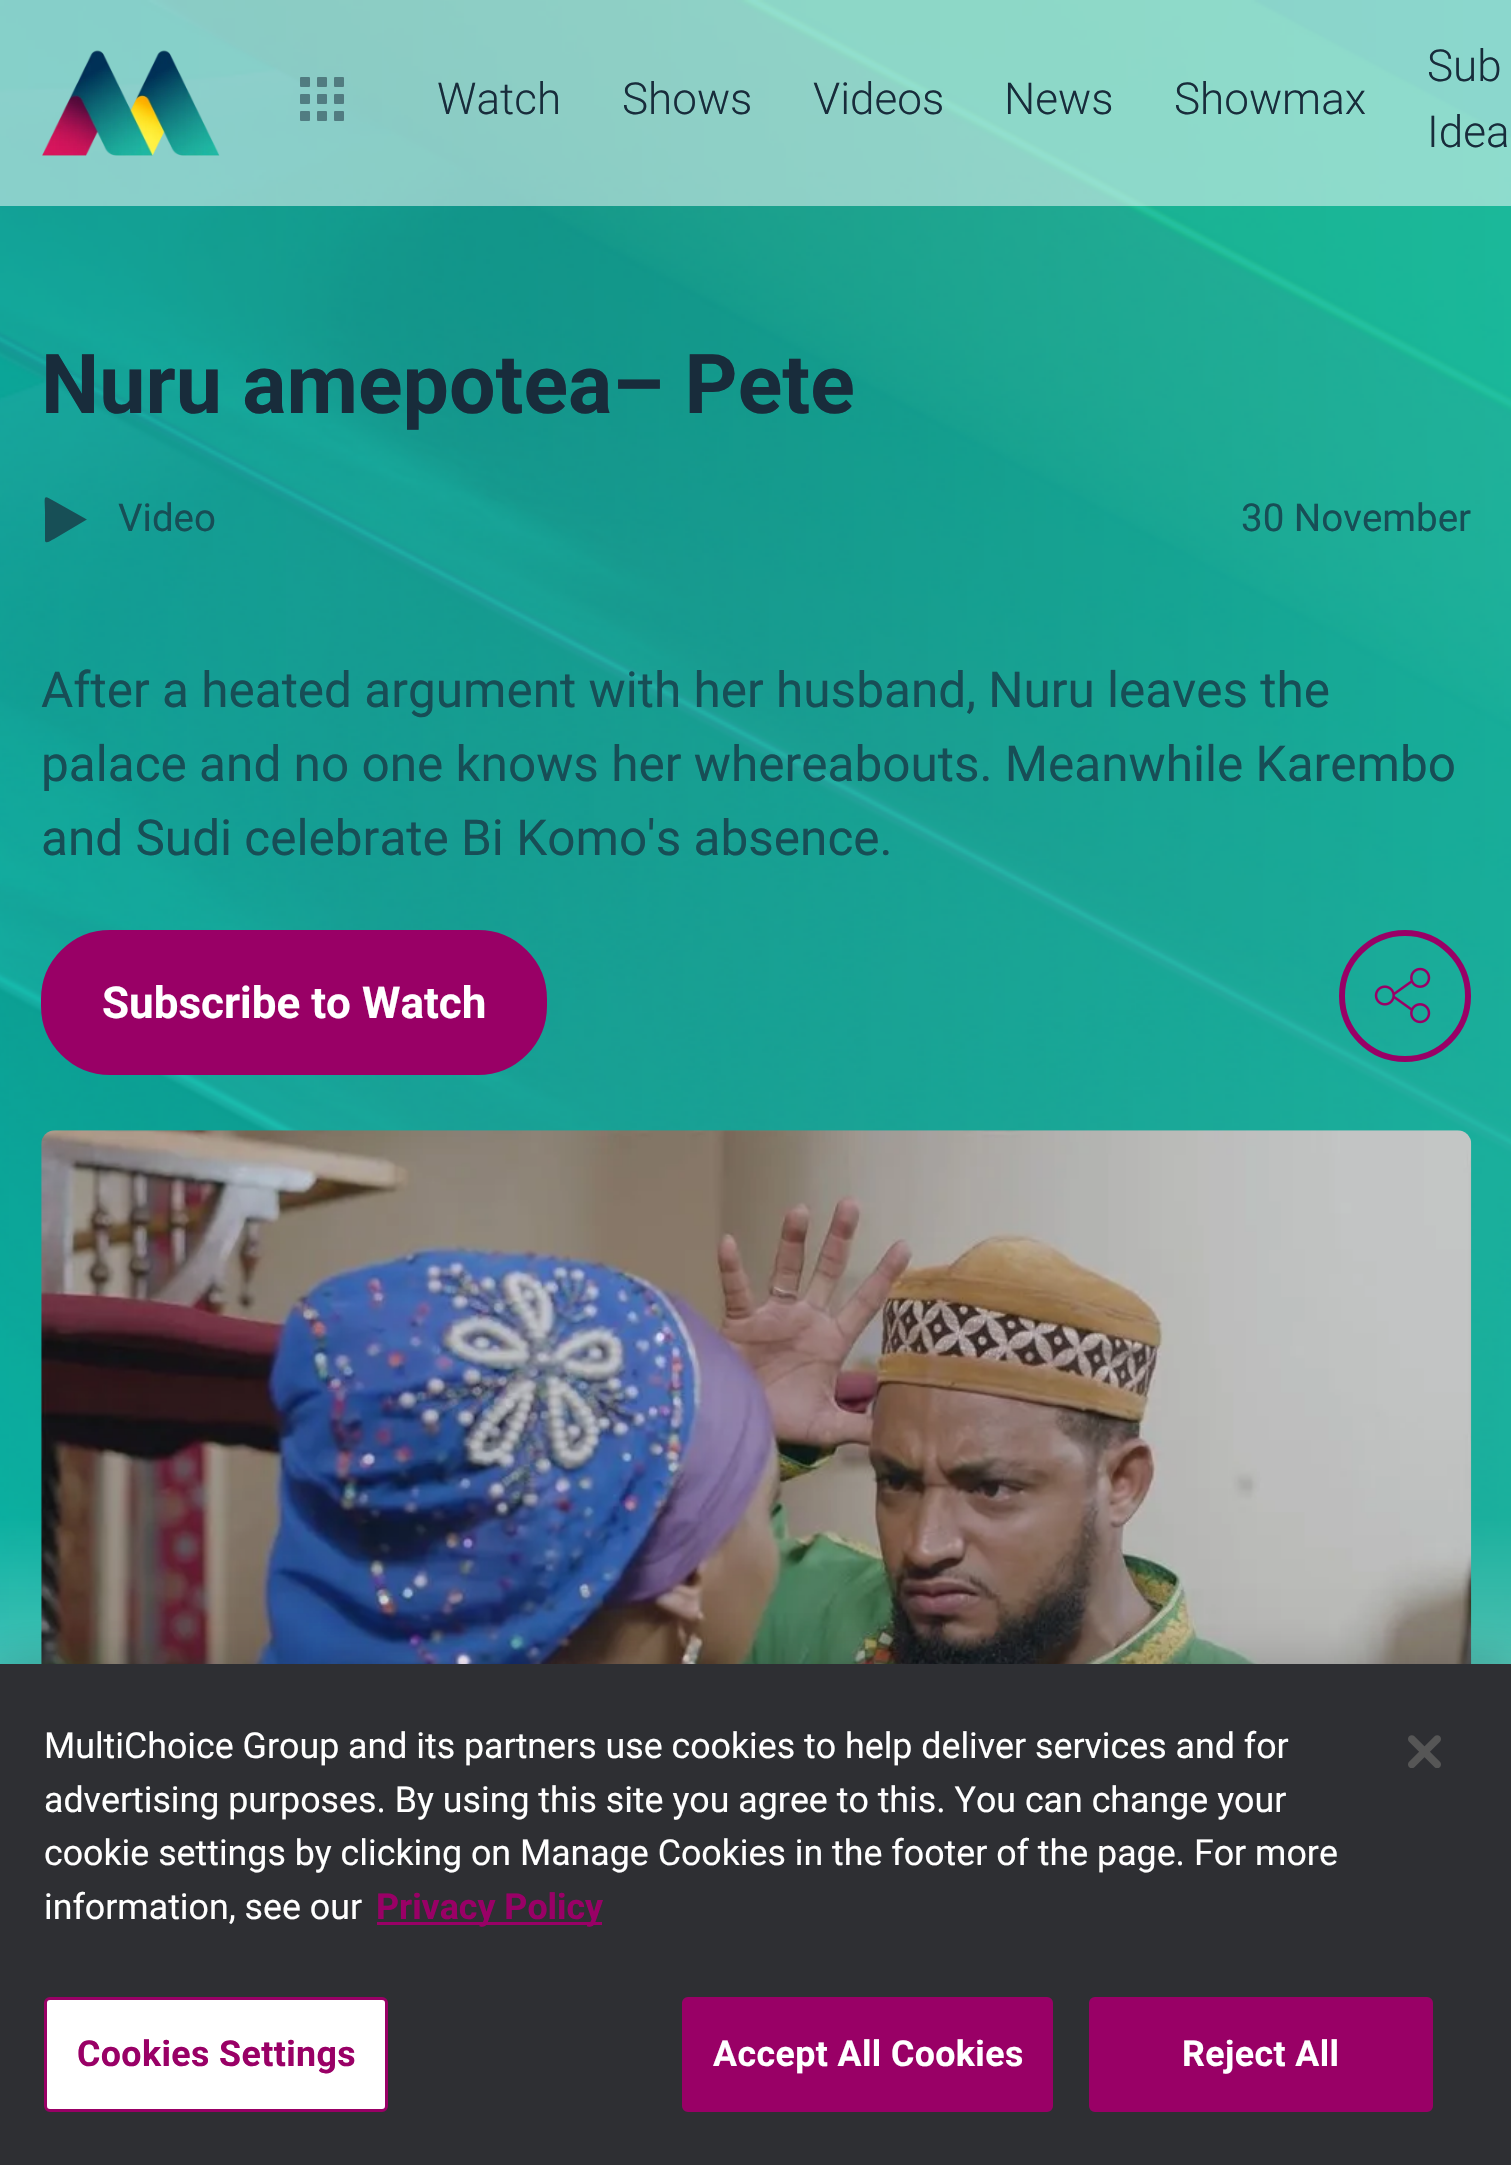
#include "include/core/SkBlurTypes.h"
#include "include/core/SkCanvas.h"
#include "include/core/SkData.h"
#include "include/core/SkFont.h"
#include "include/core/SkFontMgr.h"
#include "include/core/SkImage.h"
#include "include/core/SkMaskFilter.h"
#include "include/core/SkPaint.h"
#include "include/core/SkPathBuilder.h"
#include "include/core/SkTextBlob.h"
#include "include/effects/SkDashPathEffect.h"
#include "include/effects/SkGradientShader.h"
#include "include/utils/SkParsePath.h"

extern sk_sp<SkFontMgr> fontMgr;

void draw(SkCanvas* canvas) {
    SkPaint p;
    p.setAntiAlias(true);
    auto font = [&](const char* family, int weight, float size, bool italic = false) {
        SkFontStyle style(weight, SkFontStyle::kNormal_Width,
            italic ? SkFontStyle::kItalic_Slant : SkFontStyle::kUpright_Slant);
        SkFont result(fontMgr->matchFamilyStyle(family, style), size);
        result.setSubpixel(true);
        return result;
    };
    auto drawTracked = [&](const char* s, float x, float y, const SkFont& font, const SkPaint& ink, float letter, float word) {
        std::vector<SkGlyphID> glyphs(font.countText(s, strlen(s), SkTextEncoding::kUTF8));
        std::vector<float> xs(glyphs.size());
        font.textToGlyphs(s, strlen(s), SkTextEncoding::kUTF8, glyphs);
        font.getXPos(glyphs, xs, x);
        float extra = 0;
        for (size_t i = 0; i < glyphs.size(); i++) {
            xs[i] += extra;
            extra += letter + word * (glyphs[i] == font.unicharToGlyph(' '));
        }
        canvas->drawTextBlob(SkTextBlob::MakeFromPosHGlyphs(glyphs, xs, y, font), 0, 0, ink);
    };
    auto drawPhoto = [&](const char* path, float l, float t, float r, float b) {
        auto image = SkImages::DeferredFromEncodedData(SkData::MakeFromFileName(path));
        canvas->drawImageRect(image, SkRect::MakeLTRB(l, t, r, b), SkSamplingOptions());
    };
    canvas->clear(0xFFFFFFFF);
    drawPhoto("media/1.png", 0, 0, 1511, 1664);
    p.setColor(0x80FFFFFF);
    canvas->drawRect(SkRect::MakeLTRB(0, 0, 1511, 206), p);
    drawPhoto("media/2.png", 42, 50, 220, 156);
    p.setColor(0x80182C3B);
    canvas->drawRoundRect(SkRect::MakeLTRB(300, 77, 310, 87), 1, 1, p);
    p.setColor(0xFF517C80);
    canvas->drawRoundRect(SkRect::MakeLTRB(317, 77, 327, 87), 1, 1, p);
    canvas->drawRoundRect(SkRect::MakeLTRB(334, 77, 344, 87), 1, 1, p);
    p.setColor(0xFF517D82);
    canvas->drawRoundRect(SkRect::MakeLTRB(300, 94, 310, 104), 1, 1, p);
    p.setColor(0x80182C3B);
    canvas->drawRoundRect(SkRect::MakeLTRB(317, 94, 327, 104), 1, 1, p);
    canvas->drawRoundRect(SkRect::MakeLTRB(334, 94, 344, 104), 1, 1, p);
    p.setColor(0xFF517D82);
    canvas->drawRoundRect(SkRect::MakeLTRB(300, 111, 310, 121), 1, 1, p);
    p.setColor(0xFF517D81);
    canvas->drawRoundRect(SkRect::MakeLTRB(317, 111, 327, 121), 1, 1, p);
    p.setColor(0xFF517C81);
    canvas->drawRoundRect(SkRect::MakeLTRB(334, 111, 344, 121), 1, 1, p);
    auto font1 = font("Roboto", 300, 44);
    p.setColor(0xFF182C3B);
    {
        const struct { const char* s; float x, y; } items[] = {
            {"Watch", 437, 114},
            {"Shows", 622, 114},
            {"Videos", 813, 114},
            {"News", 1004, 114},
            {"Showmax", 1174, 114},
            {"Sub", 1427, 81},
            {"Idea", 1427, 147},
        };
        for (auto [s, x, y] : items) {
            canvas->drawString(s, x, y, font1, p);
        }
    }
    auto font2 = font("Roboto", 700, 82.5f);
    canvas->drawString("Nuru amepotea– Pete", 41, 413, font2, p);
    p.setColor(0xB3182C3B);
    canvas->drawPath(SkPathBuilder().moveTo(86, 519).lineTo(54, 501).cubicTo(42, 494, 45, 496, 45, 513).lineTo(45, 541).cubicTo(46, 544, 50, 541, 54, 539).lineTo(86, 520).cubicTo(87, 520, 87, 519, 86, 519).close().detach(), p);
    auto font3 = font("Roboto", 400, 38.5f);
    p.setColor(0xFF174E56);
    canvas->drawString("Video", 118, 531, font3, p);
    canvas->drawString("30 November", 1241, 531, font3, p);
    auto font4 = font("Roboto", 400, 49.5f);
    {
        const struct { const char* s; float x, y; } items[] = {
            {"After a heated argument with her husband, Nuru leaves the", 41, 707},
            {"palace and no one knows her whereabouts. Meanwhile Karembo", 41, 781},
            {"and Sudi celebrate Bi Komo's absence.", 41, 855},
        };
        for (auto [s, x, y] : items) {
            canvas->drawString(s, x, y, font4, p);
        }
    }
    p.setColor(0xFF990066);
    canvas->drawRoundRect(SkRect::MakeLTRB(44, 933, 544, 1072), 66, 66, p);
    p.setStyle(SkPaint::kStroke_Style);
    p.setStrokeWidth(6);
    canvas->drawRoundRect(SkRect::MakeLTRB(44, 933, 544, 1072), 66, 66, p);
    auto font5 = font("Roboto", 700, 44);
    p.setStyle(SkPaint::kFill_Style);
    p.setColor(0xFFFFFFFF);
    canvas->drawString("Subscribe to Watch", 102, 1018, font5, p);
    p.setStyle(SkPaint::kStroke_Style);
    p.setColor(0xFF990066);
    canvas->drawCircle(1405, 996, 63, p);
    drawPhoto("media/3.png", 1374, 967, 1431, 1024);
    drawPhoto("media/4.png", 41, 1130, 1472, 1664);
    p.setStyle(SkPaint::kFill_Style);
    p.setColor(0x33000000);
    p.setMaskFilter(SkMaskFilter::MakeBlur(kNormal_SkBlurStyle, 25));
    canvas->drawRect(SkRect::MakeLTRB(0, 1664, 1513, 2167), p);
    p.setMaskFilter(nullptr);
    p.setColor(0xFF2E2F33);
    canvas->drawRect(SkRect::MakeLTRB(0, 1664, 1511, 2165), p);
    auto font6 = font("Roboto", 400, 35.75f);
    p.setColor(0xFFFFFFFF);
    {
        const struct { const char* s; float x, y; } items[] = {
            {"MultiChoice Group and its partners use cookies to help deliver services and for", 44, 1758},
            {"advertising purposes. By using this site you agree to this. You can change your", 44, 1812},
            {"cookie settings by clicking on Manage Cookies in the footer of the page. For more", 44, 1865},
            {"information, see our", 44, 1919},
        };
        for (auto [s, x, y] : items) {
            canvas->drawString(s, x, y, font6, p);
        }
    }
    p.setColor(0xFF990066);
    canvas->drawRect(SkRect::MakeLTRB(377, 1922, 602, 1925), p);
    auto font7 = font("Roboto", 700, 35.75f);
    canvas->drawString("Privacy Policy", 376, 1919, font7, p);
    p.setColor(0xFFFFFFFF);
    canvas->drawRoundRect(SkRect::MakeLTRB(45.5f, 1998.5f, 386.5f, 2110.5f), 4.5f, 4.5f, p);
    p.setStyle(SkPaint::kStroke_Style);
    p.setStrokeWidth(3);
    p.setColor(0xFF990066);
    canvas->drawRoundRect(SkRect::MakeLTRB(45.5f, 1998.5f, 386.5f, 2110.5f), 4.5f, 4.5f, p);
    p.setStyle(SkPaint::kFill_Style);
    drawTracked("Cookies Settings", 77, 2066, font7, p, 0.4f, 0);
    canvas->drawRoundRect(SkRect::MakeLTRB(683.5f, 1998.5f, 1051.5f, 2110.5f), 4.5f, 4.5f, p);
    p.setStyle(SkPaint::kStroke_Style);
    canvas->drawRoundRect(SkRect::MakeLTRB(683.5f, 1998.5f, 1051.5f, 2110.5f), 4.5f, 4.5f, p);
    p.setStyle(SkPaint::kFill_Style);
    p.setColor(0xFFFFFFFF);
    drawTracked("Accept All Cookies", 713, 2066, font7, p, 0.4f, 0);
    p.setColor(0xFF990066);
    canvas->drawRoundRect(SkRect::MakeLTRB(1090.5f, 1998.5f, 1431.5f, 2110.5f), 4.5f, 4.5f, p);
    p.setStyle(SkPaint::kStroke_Style);
    canvas->drawRoundRect(SkRect::MakeLTRB(1090.5f, 1998.5f, 1431.5f, 2110.5f), 4.5f, 4.5f, p);
    p.setStyle(SkPaint::kFill_Style);
    p.setColor(0xFFFFFFFF);
    drawTracked("Reject All", 1182, 2066, font7, p, 0.4f, 0);
    drawPhoto("media/5.png", 1408, 1735, 1441, 1768);
}
